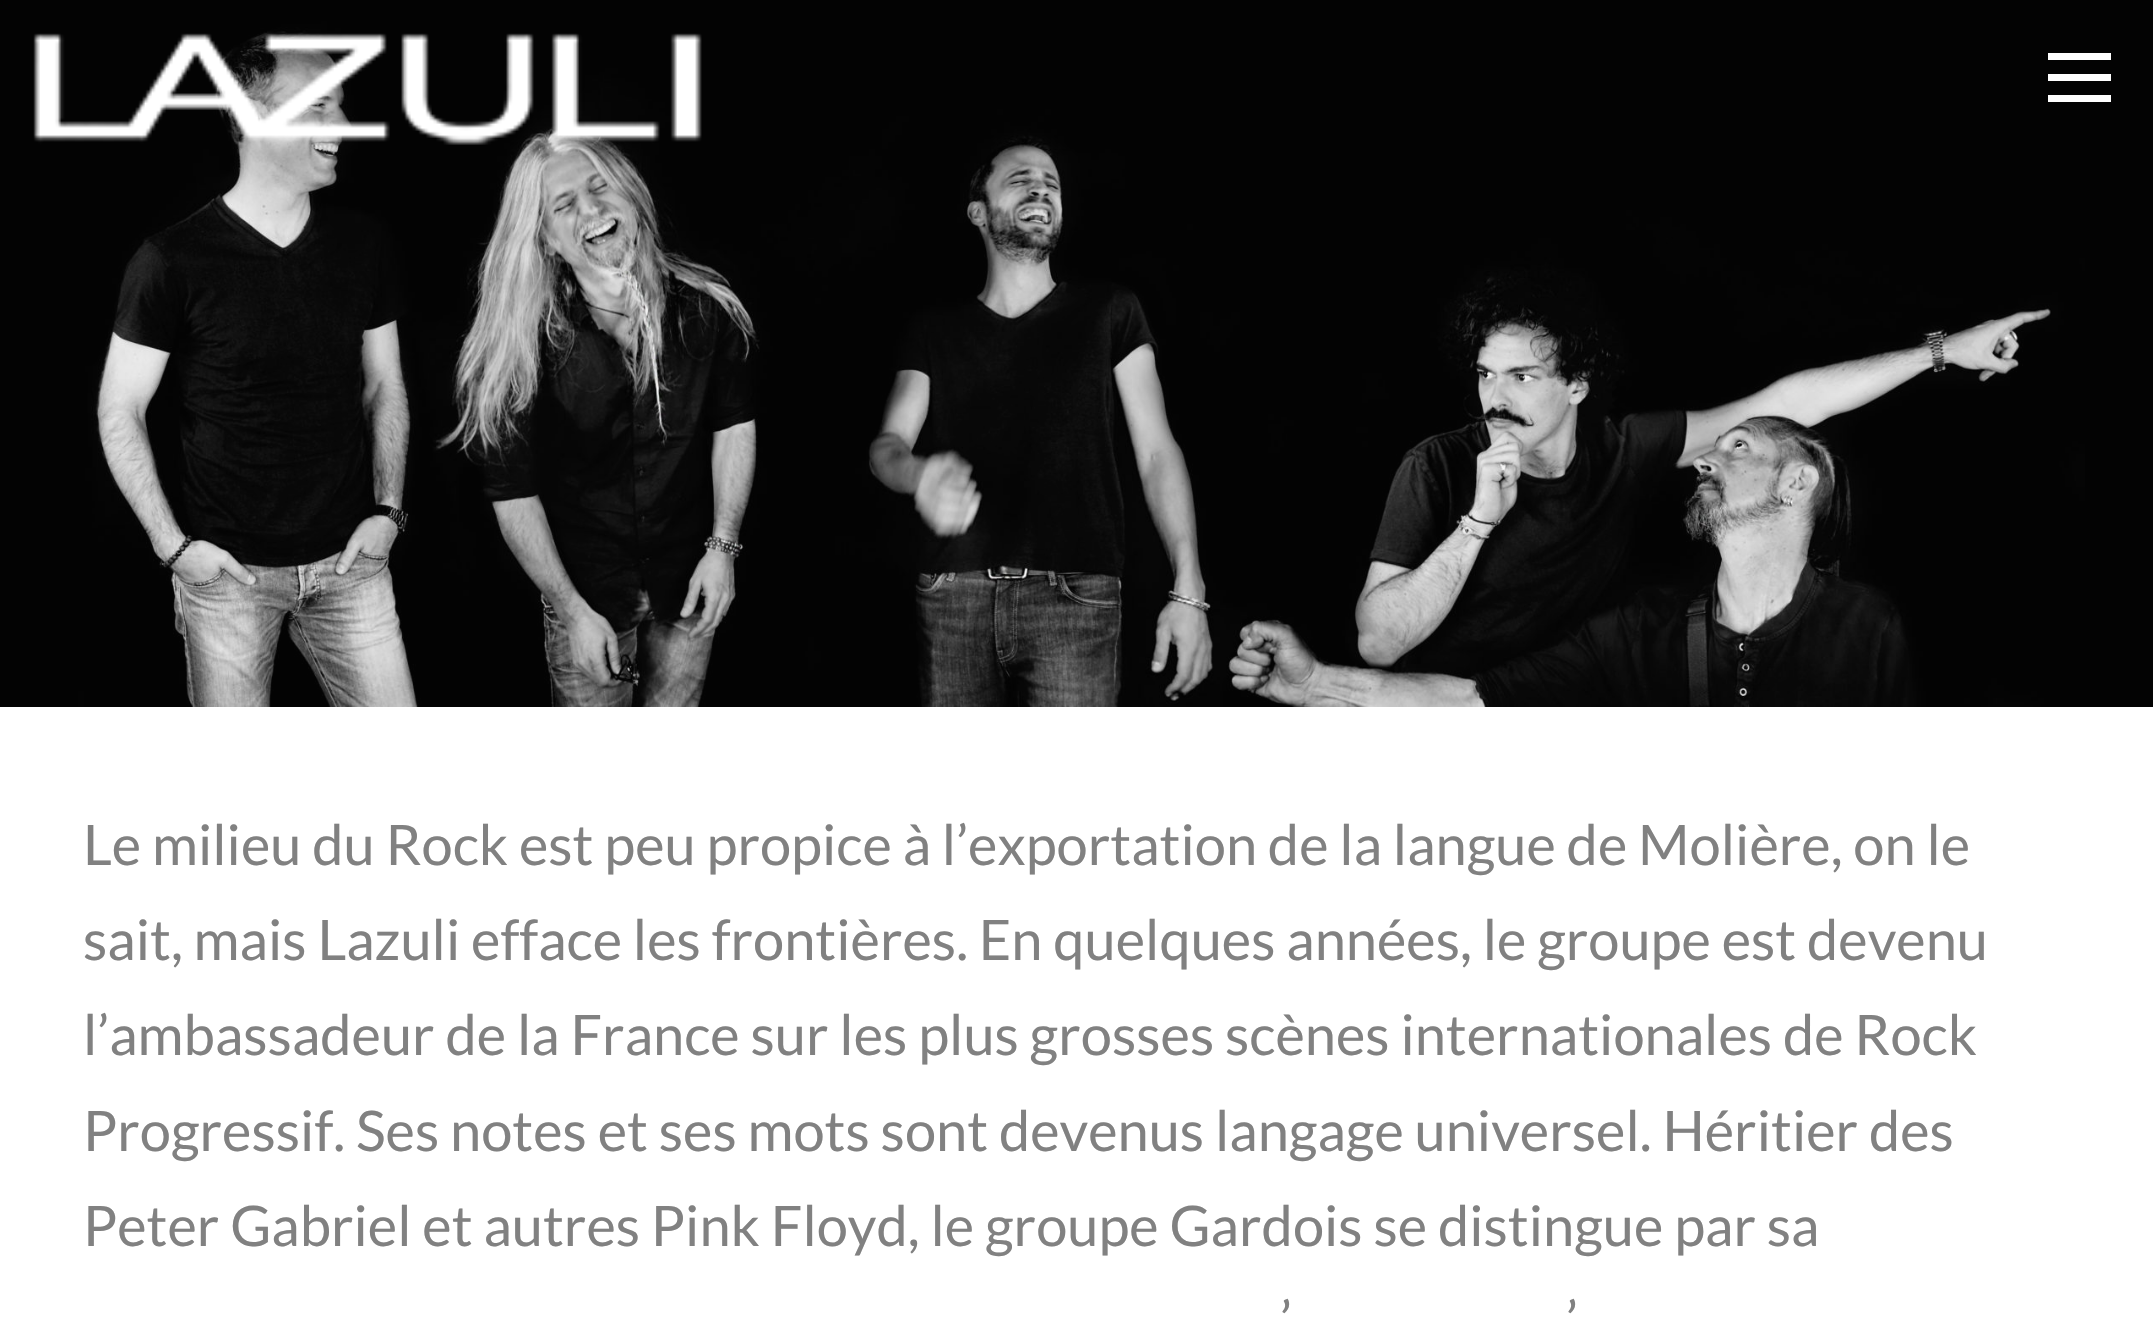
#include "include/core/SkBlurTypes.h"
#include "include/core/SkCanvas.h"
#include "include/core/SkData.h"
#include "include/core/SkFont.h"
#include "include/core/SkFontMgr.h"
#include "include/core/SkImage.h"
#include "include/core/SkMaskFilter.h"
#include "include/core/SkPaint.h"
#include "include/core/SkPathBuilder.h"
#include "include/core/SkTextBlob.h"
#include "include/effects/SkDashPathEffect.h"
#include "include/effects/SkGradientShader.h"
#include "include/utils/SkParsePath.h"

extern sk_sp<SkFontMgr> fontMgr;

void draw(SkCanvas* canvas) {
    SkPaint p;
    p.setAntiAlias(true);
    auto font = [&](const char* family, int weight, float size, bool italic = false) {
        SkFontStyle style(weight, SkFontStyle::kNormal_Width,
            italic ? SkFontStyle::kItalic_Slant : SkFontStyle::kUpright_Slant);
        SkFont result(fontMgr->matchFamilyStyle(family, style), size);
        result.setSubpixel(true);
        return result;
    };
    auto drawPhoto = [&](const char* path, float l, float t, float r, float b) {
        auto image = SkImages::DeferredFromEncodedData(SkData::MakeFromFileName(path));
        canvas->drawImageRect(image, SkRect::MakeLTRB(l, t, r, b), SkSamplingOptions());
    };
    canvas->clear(0xFFFFFFFF);
    drawPhoto("media/2.png", 0, 0, 2153, 707);
    drawPhoto("media/1.png", 33, 33, 702, 145);
    {
        const struct { float l, t, r, b; SkColor color; } items[] = {
            {2048, 53, 2111, 60, 0xFFFFFFFF},
            {2048, 74, 2111, 81, 0xFFFFFFFF},
            {2048, 95, 2111, 102, 0xFFFFFFFF},
        };
        for (auto [l, t, r, b, color] : items) {
            p.setColor(color);
            canvas->drawRect(SkRect::MakeLTRB(l, t, r, b), p);
        }
    }
    auto font1 = font("Lato", 400, 56);
    p.setColor(0xFF818181);
    {
        const struct { const char* s; float x, y; } items[] = {
            {"Le milieu du Rock est peu propice à l’exportation de la langue de Molière, on le", 83, 865},
            {"sait, mais Lazuli efface les frontières. En quelques années, le groupe est devenu", 83, 960},
            {"l’ambassadeur de la France sur les plus grosses scènes internationales de Rock", 83, 1055},
            {"Progressif. Ses notes et ses mots sont devenus langage universel. Héritier des", 83, 1151},
            {"Peter Gabriel et autres Pink Floyd, le groupe Gardois se distingue par sa", 83, 1246},
            {"’", 1280, 1341},
            {"’", 1566, 1341},
        };
        for (auto [s, x, y] : items) {
            canvas->drawString(s, x, y, font1, p);
        }
    }
}
